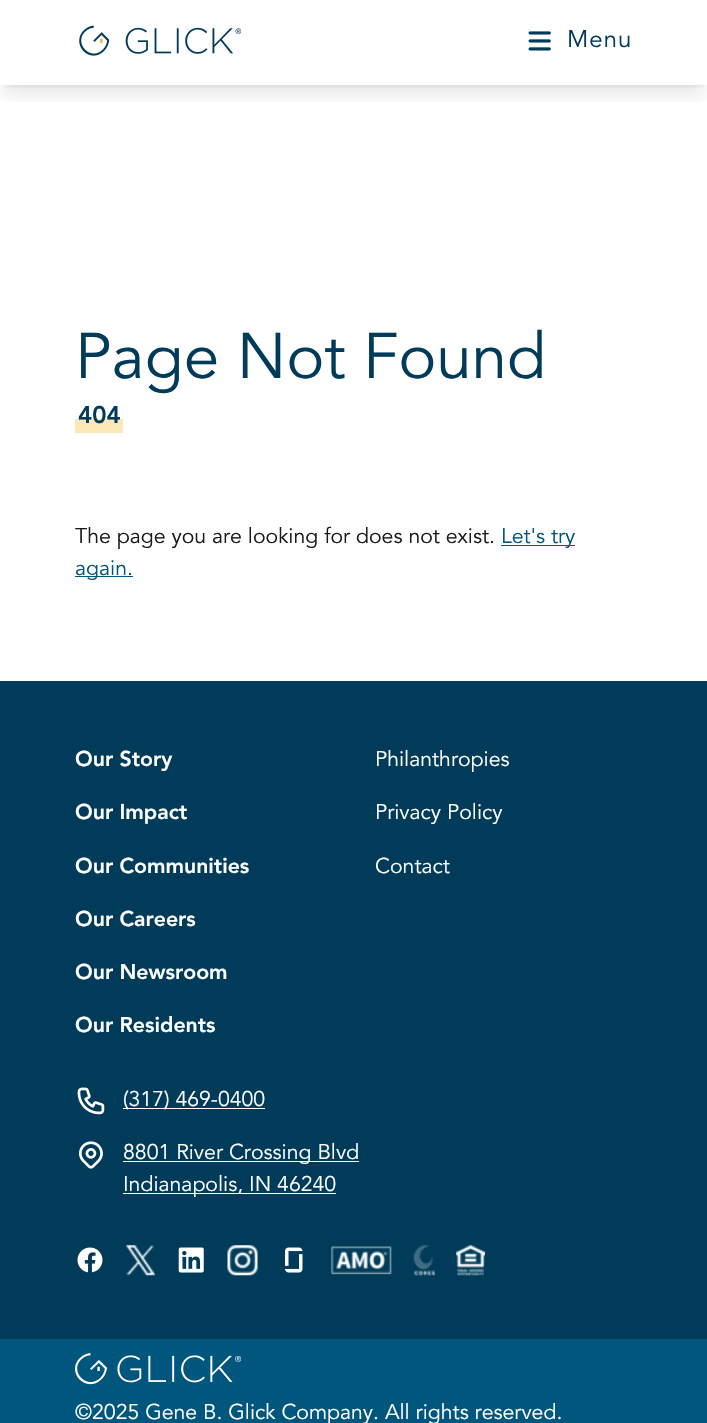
#include "include/core/SkBlurTypes.h"
#include "include/core/SkCanvas.h"
#include "include/core/SkData.h"
#include "include/core/SkFont.h"
#include "include/core/SkFontMgr.h"
#include "include/core/SkImage.h"
#include "include/core/SkMaskFilter.h"
#include "include/core/SkPaint.h"
#include "include/core/SkPathBuilder.h"
#include "include/core/SkTextBlob.h"
#include "include/effects/SkDashPathEffect.h"
#include "include/effects/SkGradientShader.h"
#include "include/utils/SkParsePath.h"

extern sk_sp<SkFontMgr> fontMgr;

void draw(SkCanvas* canvas) {
    SkPaint p;
    p.setAntiAlias(true);
    auto font = [&](const char* family, int weight, float size, bool italic = false) {
        SkFontStyle style(weight, SkFontStyle::kNormal_Width,
            italic ? SkFontStyle::kItalic_Slant : SkFontStyle::kUpright_Slant);
        SkFont result(fontMgr->matchFamilyStyle(family, style), size);
        result.setSubpixel(true);
        return result;
    };
    auto drawTracked = [&](const char* s, float x, float y, const SkFont& font, const SkPaint& ink, float letter, float word) {
        std::vector<SkGlyphID> glyphs(font.countText(s, strlen(s), SkTextEncoding::kUTF8));
        std::vector<float> xs(glyphs.size());
        font.textToGlyphs(s, strlen(s), SkTextEncoding::kUTF8, glyphs);
        font.getXPos(glyphs, xs, x);
        float extra = 0;
        for (size_t i = 0; i < glyphs.size(); i++) {
            xs[i] += extra;
            extra += letter + word * (glyphs[i] == font.unicharToGlyph(' '));
        }
        canvas->drawTextBlob(SkTextBlob::MakeFromPosHGlyphs(glyphs, xs, y, font), 0, 0, ink);
    };
    auto drawPhoto = [&](const char* path, float l, float t, float r, float b) {
        auto image = SkImages::DeferredFromEncodedData(SkData::MakeFromFileName(path));
        canvas->drawImageRect(image, SkRect::MakeLTRB(l, t, r, b), SkSamplingOptions());
    };
    canvas->clear(0xFFFFFFFF);
    canvas->save();
    canvas->clipRect(SkRect::MakeLTRB(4, 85, 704, 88));
    p.setColor(0x1A000000);
    p.setMaskFilter(SkMaskFilter::MakeBlur(kNormal_SkBlurStyle, 4));
    canvas->drawRect(SkRect::MakeLTRB(5, 10, 703, 85), p);
    p.setMaskFilter(nullptr);
    canvas->restore();
    canvas->save();
    canvas->clipRect(SkRect::MakeLTRB(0, 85, 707, 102));
    p.setMaskFilter(SkMaskFilter::MakeBlur(kNormal_SkBlurStyle, 9.5f));
    canvas->drawRect(SkRect::MakeLTRB(4, 16, 704, 94), p);
    p.setMaskFilter(nullptr);
    canvas->restore();
    drawPhoto("media/1.png", 79, 25, 241, 56);
    drawPhoto("media/2.png", 528, 31, 551, 51);
    auto font1 = font("Avenir", 400, 24);
    p.setColor(0xFF003B59);
    drawTracked("Menu", 567, 47, font1, p, 1, 0);
    auto font2 = font("Avenir", 400, 63.75f);
    canvas->drawString("Page Not Found", 75, 378, font2, p);
    {
        const SkColor colors[] = {0xFFFFFFFF, 0xFFFFFFFF, 0xFFFAE8B7, 0xFFFAE8B7};
        const float stops[] = {0, 0.5f, 0.51f, 1};
        const SkPoint ends[] = {{99, 404}, {99, 433}};
        p.setShader(SkGradientShader::MakeLinear(ends, colors, stops, 4, SkTileMode::kClamp));
        p.setAlpha(255);
    }
    canvas->drawRect(SkRect::MakeLTRB(75, 419, 123, 433), p);
    auto font3 = font("Avenir", 900, 24);
    p.setShader(nullptr);
    p.setColor(0xFF003B59);
    canvas->drawString("404", 78, 423, font3, p);
    auto font4 = font("Avenir", 400, 21.25f);
    p.setColor(0xFF191919);
    canvas->drawString("The page you are looking for does not exist.", 75, 543, font4, p);
    p.setColor(0xFF00567D);
    canvas->drawRect(SkRect::MakeLTRB(501, 545, 575, 546), p);
    canvas->drawString("Let's try", 501, 543, font4, p);
    canvas->drawRect(SkRect::MakeLTRB(75, 576, 133, 577), p);
    canvas->drawString("again.", 75, 575, font4, p);
    p.setColor(0xFF003B59);
    canvas->drawRect(SkRect::MakeLTRB(0, 681, 707, 1339), p);
    auto font5 = font("Avenir", 900, 21.25f);
    p.setColor(0xFFFFFFFF);
    {
        const struct { const char* s; float x, y; } items[] = {
            {"Our Story", 75, 766},
            {"Our Impact", 75, 819},
            {"Our Communities", 75, 873},
            {"Our Careers", 75, 926},
            {"Our Newsroom", 75, 979},
            {"Our Residents", 75, 1032},
        };
        for (auto [s, x, y] : items) {
            canvas->drawString(s, x, y, font5, p);
        }
    }
    {
        const struct { const char* s; float x, y; } items[] = {
            {"Philanthropies", 375, 766},
            {"Privacy Policy", 375, 819},
            {"Contact", 375, 873},
        };
        for (auto [s, x, y] : items) {
            canvas->drawString(s, x, y, font4, p);
        }
    }
    drawPhoto("media/3.png", 77, 1087, 105, 1115);
    canvas->drawRect(SkRect::MakeLTRB(123, 1108, 265, 1109), p);
    canvas->drawString("(317) 469-0400", 123, 1106, font4, p);
    drawPhoto("media/4.png", 79, 1141, 103, 1169);
    canvas->drawRect(SkRect::MakeLTRB(123, 1161, 359, 1162), p);
    canvas->drawString("8801 River Crossing Blvd", 123, 1159, font4, p);
    canvas->drawRect(SkRect::MakeLTRB(123, 1193, 336, 1194), p);
    canvas->drawString("Indianapolis, IN 46240", 123, 1191, font4, p);
    drawPhoto("media/5.png", 77, 1247, 103, 1273);
    drawPhoto("media/6.png", 126, 1245, 155, 1276);
    drawPhoto("media/7.png", 178, 1247, 204, 1273);
    drawPhoto("media/8.png", 227, 1245, 258, 1276);
    drawPhoto("media/9.png", 285, 1247, 303, 1273);
    drawPhoto("media/10.png", 331, 1246, 392, 1275);
    drawPhoto("media/11.png", 413, 1245, 435, 1276);
    drawPhoto("media/12.png", 456, 1245, 485, 1276);
    p.setColor(0xFF00567D);
    canvas->drawRect(SkRect::MakeLTRB(0, 1339, 707, 1423), p);
    drawPhoto("media/13.png", 75, 1353, 241, 1385);
    p.setColor(0xFFFFFFFF);
    canvas->drawString("©2025 Gene B. Glick Company. All rights reserved.", 75, 1419, font4, p);
}
